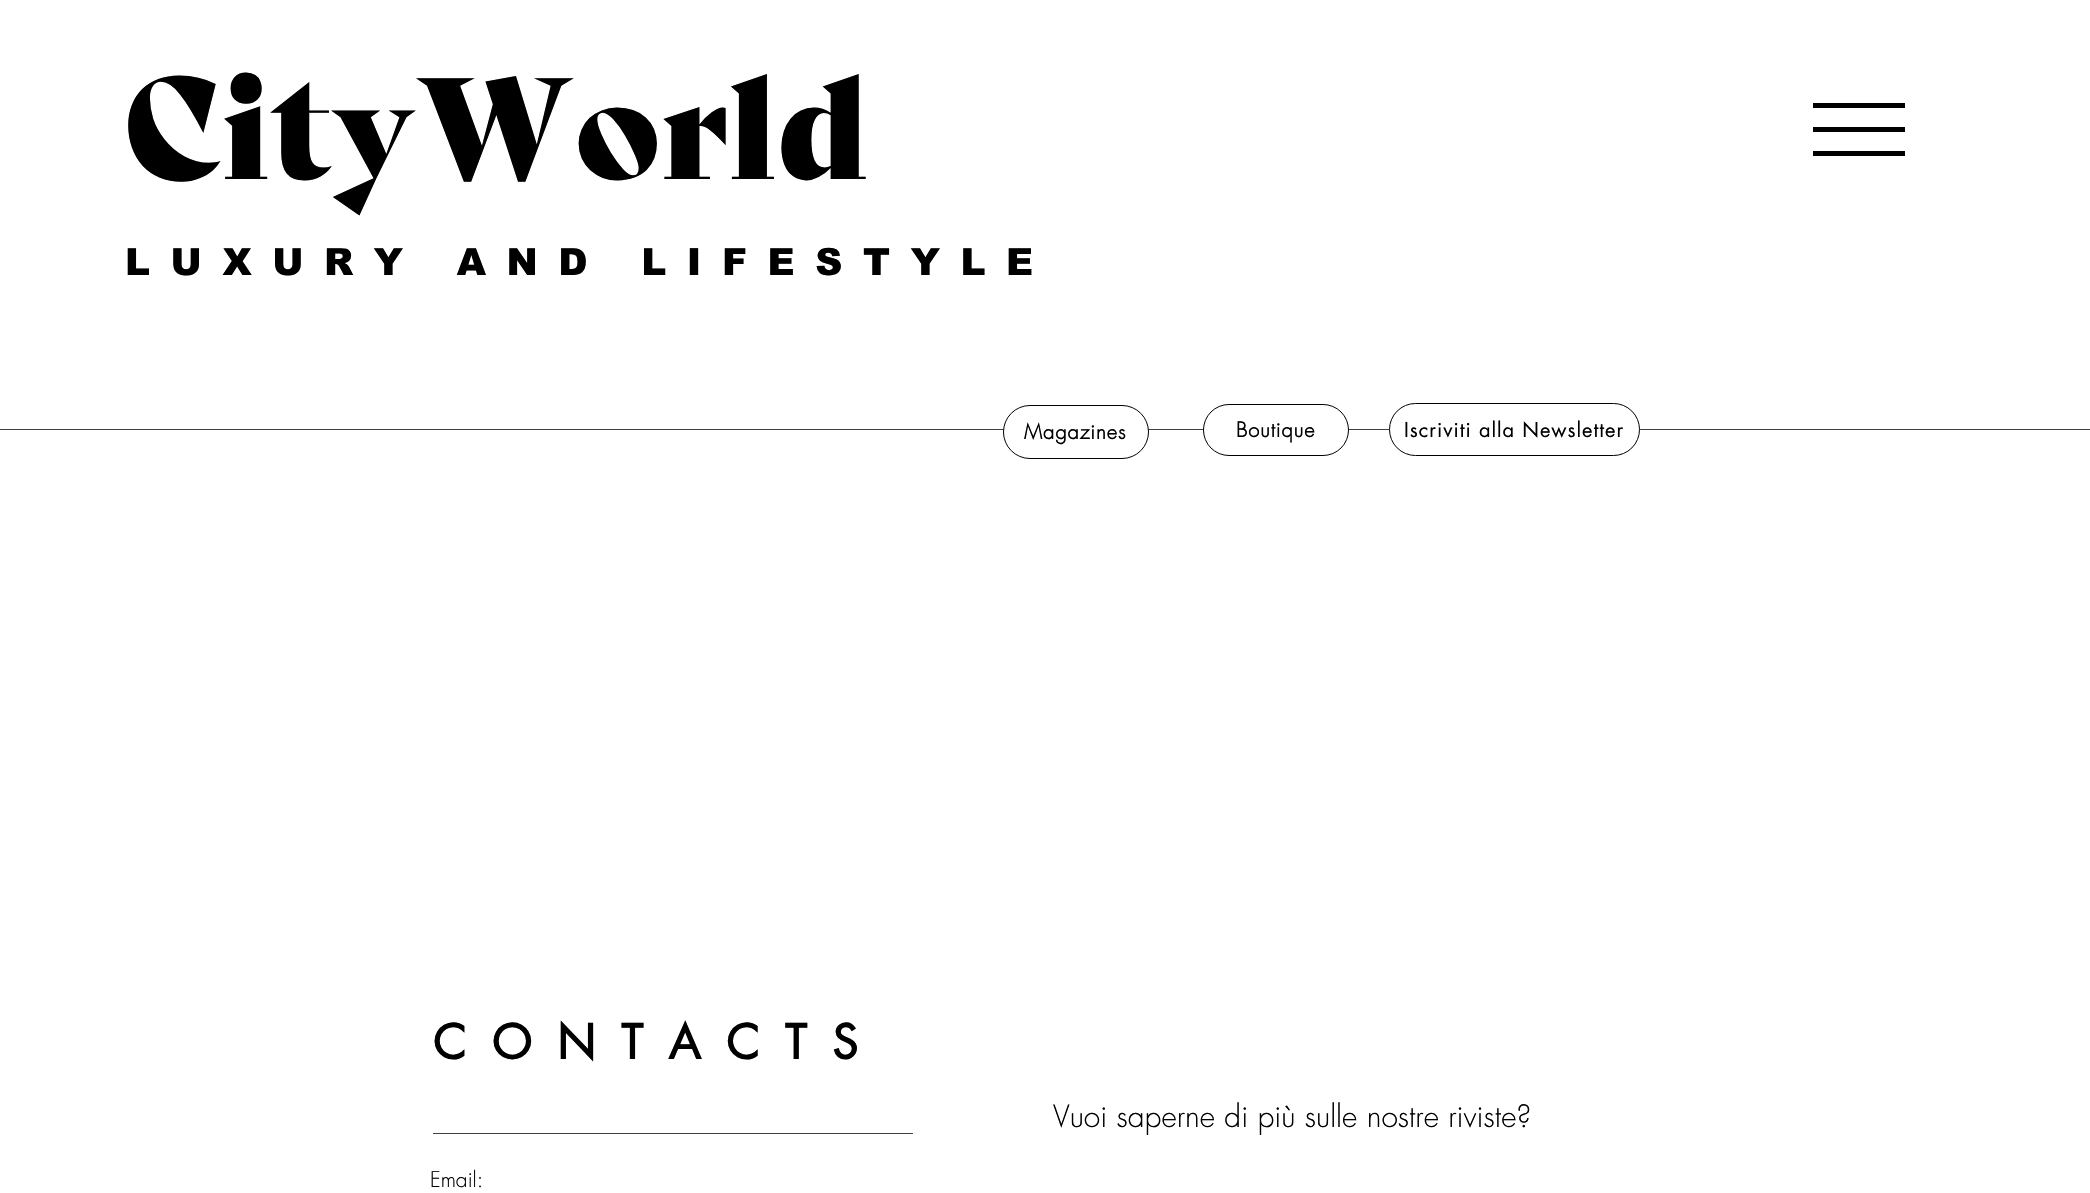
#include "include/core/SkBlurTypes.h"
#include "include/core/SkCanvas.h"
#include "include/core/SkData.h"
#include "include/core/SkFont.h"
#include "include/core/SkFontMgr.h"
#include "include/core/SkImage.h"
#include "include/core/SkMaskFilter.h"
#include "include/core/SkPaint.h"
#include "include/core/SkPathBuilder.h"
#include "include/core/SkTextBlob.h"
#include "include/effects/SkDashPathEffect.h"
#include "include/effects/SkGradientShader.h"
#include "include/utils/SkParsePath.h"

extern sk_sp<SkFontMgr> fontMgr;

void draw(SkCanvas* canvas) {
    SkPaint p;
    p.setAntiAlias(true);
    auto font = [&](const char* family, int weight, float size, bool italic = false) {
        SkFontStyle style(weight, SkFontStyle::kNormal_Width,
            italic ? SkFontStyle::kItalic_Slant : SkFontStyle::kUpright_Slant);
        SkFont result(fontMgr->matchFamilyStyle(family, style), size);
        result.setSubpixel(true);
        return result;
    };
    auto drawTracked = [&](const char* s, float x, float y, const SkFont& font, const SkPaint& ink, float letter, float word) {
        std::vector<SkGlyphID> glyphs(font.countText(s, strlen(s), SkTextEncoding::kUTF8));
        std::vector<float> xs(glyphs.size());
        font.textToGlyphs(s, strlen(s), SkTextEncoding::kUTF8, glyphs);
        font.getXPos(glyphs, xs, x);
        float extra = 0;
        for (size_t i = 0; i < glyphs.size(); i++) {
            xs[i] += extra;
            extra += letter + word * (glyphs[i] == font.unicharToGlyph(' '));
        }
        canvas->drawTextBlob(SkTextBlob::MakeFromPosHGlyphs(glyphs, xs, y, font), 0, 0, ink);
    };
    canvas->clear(0xFFFFFFFF);
    auto font1 = font("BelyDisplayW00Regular", 400, 140);
    p.setColor(0xFF000000);
    canvas->drawString("CityWorld", 124, 179, font1, p);
    auto font2 = font("arial", 900, 37.5f);
    drawTracked("LUXURY AND LIFESTYLE", 125, 275, font2, p, 20.6f, 0);
    {
        const struct { float l, t, r, b; SkColor color; } items[] = {
            {1813, 151, 1905, 156, 0xFF000000},
            {1813, 127, 1905, 132, 0xFF000000},
            {1813, 103, 1905, 108, 0xFF000000},
            {0, 429, 2090, 430, 0xFF424242},
        };
        for (auto [l, t, r, b, color] : items) {
            p.setColor(color);
            canvas->drawRect(SkRect::MakeLTRB(l, t, r, b), p);
        }
    }
    p.setColor(0xFFFFFFFF);
    canvas->drawRoundRect(SkRect::MakeLTRB(1003.5f, 405.5f, 1148.5f, 458.5f), 26.5f, 26.5f, p);
    p.setStyle(SkPaint::kStroke_Style);
    p.setStrokeWidth(1);
    p.setColor(0xFF000000);
    canvas->drawRoundRect(SkRect::MakeLTRB(1003.5f, 405.5f, 1148.5f, 458.5f), 26.5f, 26.5f, p);
    auto font3 = font("futura", 700, 20);
    p.setStyle(SkPaint::kFill_Style);
    drawTracked("Magazines", 1024, 439, font3, p, 1, 0);
    p.setColor(0xFFFFFFFF);
    canvas->drawRoundRect(SkRect::MakeLTRB(1203.5f, 404.5f, 1348.5f, 455.5f), 25.5f, 25.5f, p);
    p.setStyle(SkPaint::kStroke_Style);
    p.setColor(0xFF000000);
    canvas->drawRoundRect(SkRect::MakeLTRB(1203.5f, 404.5f, 1348.5f, 455.5f), 25.5f, 25.5f, p);
    p.setStyle(SkPaint::kFill_Style);
    drawTracked("Boutique", 1236, 437, font3, p, 1, 0);
    p.setColor(0xFFFFFFFF);
    canvas->drawRoundRect(SkRect::MakeLTRB(1389.5f, 403.5f, 1639.5f, 455.5f), 26, 26, p);
    p.setStyle(SkPaint::kStroke_Style);
    p.setColor(0xFF000000);
    canvas->drawRoundRect(SkRect::MakeLTRB(1389.5f, 403.5f, 1639.5f, 455.5f), 26, 26, p);
    auto font4 = font("futura", 400, 20);
    p.setStyle(SkPaint::kFill_Style);
    drawTracked("Iscriviti alla Newsletter", 1404, 437, font4, p, 1, 0);
    auto font5 = font("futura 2", 700, 46.25f);
    drawTracked("CONTACTS", 433, 1059, font5, p, 25.5f, 0);
    p.setColor(0xFF424242);
    canvas->drawRect(SkRect::MakeLTRB(433, 1133, 913, 1134), p);
    auto font6 = font("futura", 300, 30);
    p.setColor(0xFF000000);
    canvas->drawString("Vuoi saperne di più sulle nostre riviste?", 1053, 1127, font6, p);
    auto font7 = font("futura", 300, 21);
    canvas->drawString("Email:", 430, 1187, font7, p);
}
